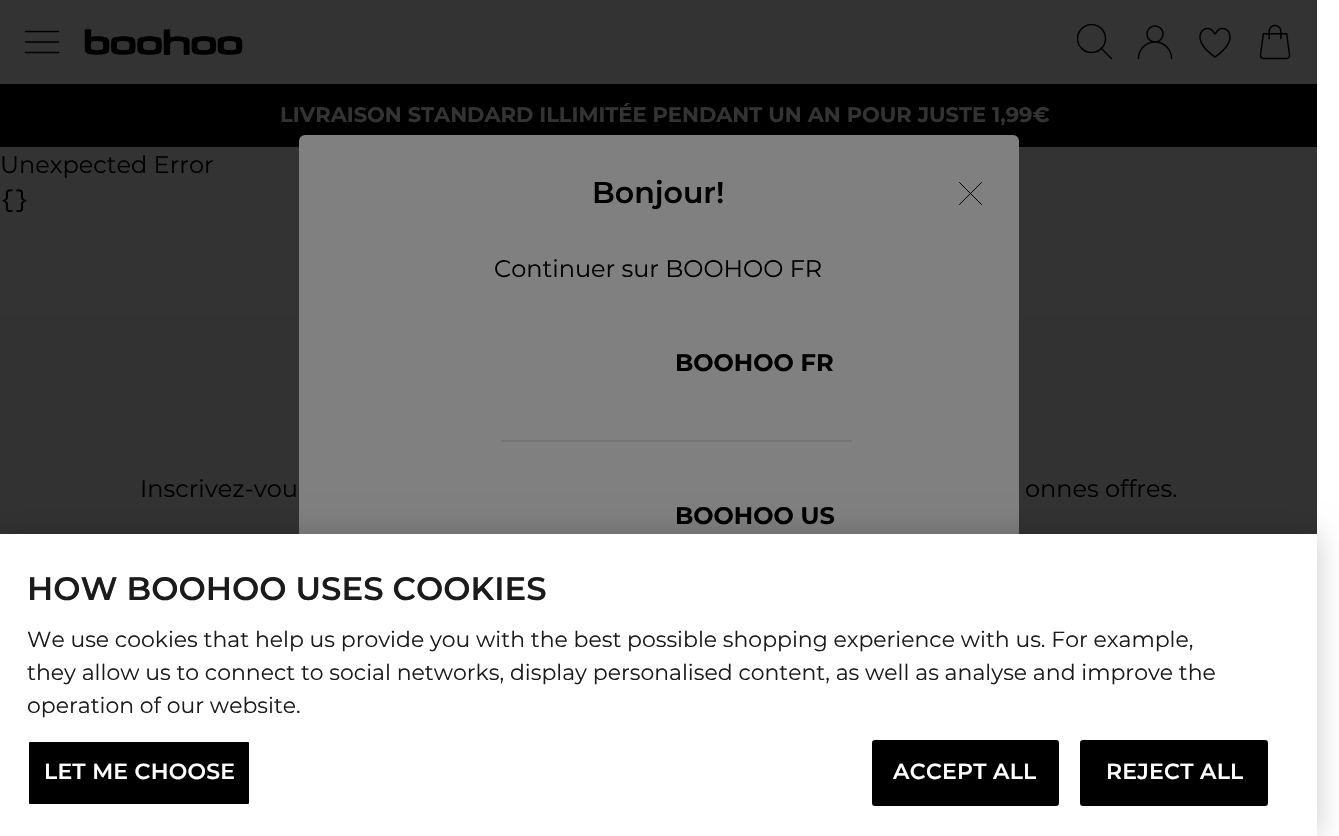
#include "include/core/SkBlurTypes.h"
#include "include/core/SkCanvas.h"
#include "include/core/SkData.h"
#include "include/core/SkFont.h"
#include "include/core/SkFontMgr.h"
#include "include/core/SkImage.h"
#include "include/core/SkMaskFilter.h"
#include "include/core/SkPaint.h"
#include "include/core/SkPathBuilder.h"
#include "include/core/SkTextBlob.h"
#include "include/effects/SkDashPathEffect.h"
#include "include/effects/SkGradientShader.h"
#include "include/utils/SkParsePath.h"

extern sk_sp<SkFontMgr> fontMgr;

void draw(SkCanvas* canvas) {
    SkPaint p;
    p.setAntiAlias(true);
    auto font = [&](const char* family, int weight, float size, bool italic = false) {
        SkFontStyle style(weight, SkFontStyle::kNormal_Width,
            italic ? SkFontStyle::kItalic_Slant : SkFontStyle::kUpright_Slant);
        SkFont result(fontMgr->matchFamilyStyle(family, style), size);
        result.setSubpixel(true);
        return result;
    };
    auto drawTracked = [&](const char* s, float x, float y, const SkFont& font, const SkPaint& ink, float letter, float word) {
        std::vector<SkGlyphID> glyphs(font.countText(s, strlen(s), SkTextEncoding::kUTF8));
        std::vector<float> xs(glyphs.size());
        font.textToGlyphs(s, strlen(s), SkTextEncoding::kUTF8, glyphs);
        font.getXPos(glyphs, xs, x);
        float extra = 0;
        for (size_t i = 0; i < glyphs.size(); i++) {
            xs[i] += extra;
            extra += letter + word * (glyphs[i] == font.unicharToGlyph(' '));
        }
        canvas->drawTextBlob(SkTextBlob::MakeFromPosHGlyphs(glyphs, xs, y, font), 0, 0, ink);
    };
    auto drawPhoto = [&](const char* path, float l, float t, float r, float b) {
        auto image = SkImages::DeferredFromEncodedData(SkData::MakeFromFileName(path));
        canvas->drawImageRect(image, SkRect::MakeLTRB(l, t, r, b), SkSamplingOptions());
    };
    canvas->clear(0xFFFFFFFF);
    p.setColor(0xFF333333);
    canvas->drawRect(SkRect::MakeLTRB(0, 0, 1317, 315), p);
    p.setStyle(SkPaint::kStroke_Style);
    p.setStrokeWidth(1.5f);
    p.setStrokeCap(SkPaint::kRound_Cap);
    p.setColor(0xFF000000);
    canvas->drawPath(SkPathBuilder().moveTo(58.5f, 42).lineTo(25.5f, 42).moveTo(58.5f, 52.5f).lineTo(25.5f, 52.5f).moveTo(58.5f, 31.5f).lineTo(25.5f, 31.5f).detach(), p);
    drawPhoto("media/1.png", 84, 29, 243, 55);
    canvas->save();
    canvas->clipRect(SkRect::MakeLTRB(1077, 24, 1113, 60));
    p.setStrokeCap(SkPaint::kButt_Cap);
    canvas->drawCircle(1091.5f, 38.5f, 14, p);
    canvas->restore();
    p.setStyle(SkPaint::kFill_Style);
    canvas->drawPath(SkPathBuilder().moveTo(1111, 59).cubicTo(1111.5f, 59.5f, 1112.5f, 58.5f, 1112, 58).close().moveTo(1112, 58).lineTo(1101.5f, 47.5f).lineTo(1100.5f, 48.5f).lineTo(1111, 59).close().detach(), p);
    drawPhoto("media/2.png", 1137, 25, 1173, 60);
    drawPhoto("media/3.png", 1199, 27, 1231, 58);
    drawPhoto("media/4.png", 1259, 24, 1291, 60);
    canvas->drawRect(SkRect::MakeLTRB(0, 84, 1317, 147), p);
    auto font1 = font("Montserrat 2", 100, 21);
    p.setColor(0xFF333333);
    canvas->drawString("LIVRAISON STANDARD ILLIMITÉE PENDANT UN AN POUR JUSTE 1,99€", 280, 122, font1, p);
    auto font2 = font("Montserrat", 100, 24);
    p.setColor(0xFF000000);
    canvas->drawString("Unexpected Error", 0, 173, font2, p);
    auto font3 = font("Liberation Mono", 400, 24);
    canvas->drawString("{}", 0, 207, font3, p);
    p.setColor(0xFF323232);
    canvas->drawRect(SkRect::MakeLTRB(0, 315, 1317, 534), p);
    p.setColor(0xFF000000);
    canvas->drawString("Inscrivez-vou", 140, 497, font2, p);
    canvas->drawString("onnes offres.", 1025, 497, font2, p);
    p.setColor(0xFF808080);
    canvas->drawRoundRect(SkRect::MakeLTRB(299, 135, 1019, 704), 6, 6, p);
    auto font4 = font("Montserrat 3", 100, 30);
    p.setColor(0xFF000000);
    canvas->drawString("Bonjour!", 592, 203, font4, p);
    p.setStyle(SkPaint::kStroke_Style);
    p.setStrokeWidth(1);
    p.setStrokeCap(SkPaint::kRound_Cap);
    canvas->drawPath(SkPathBuilder().moveTo(981.5f, 182.5f).lineTo(959.5f, 204.5f).moveTo(959.5f, 182.5f).lineTo(981.5f, 204.5f).detach(), p);
    p.setStyle(SkPaint::kFill_Style);
    canvas->drawString("Continuer sur BOOHOO FR", 494, 277, font2, p);
    auto font5 = font("Montserrat 2", 100, 24);
    canvas->drawString("BOOHOO FR", 675, 371, font5, p);
    p.setColor(0xFF747474);
    canvas->drawRect(SkRect::MakeLTRB(501, 440, 852, 442), p);
    p.setColor(0xFF000000);
    canvas->drawString("BOOHOO US", 675, 524, font5, p);
    p.setColor(0x33000000);
    p.setMaskFilter(SkMaskFilter::MakeBlur(kNormal_SkBlurStyle, 13.5f));
    canvas->drawRect(SkRect::MakeLTRB(0, 534, 1317, 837), p);
    p.setMaskFilter(nullptr);
    p.setColor(0xFFFFFFFF);
    canvas->drawRect(SkRect::MakeLTRB(0, 534, 1317, 836), p);
    auto font6 = font("Montserrat 3", 100, 32.4f);
    p.setColor(0xFF1B1B1B);
    canvas->drawString("HOW BOOHOO USES COOKIES", 27, 600, font6, p);
    auto font7 = font("Montserrat", 100, 21.95f);
    {
        const struct { const char* s; float x, y; } items[] = {
            {"We use cookies that help us provide you with the best possible shopping experience with us. For example,", 27, 647},
            {"they allow us to connect to social networks, display personalised content, as well as analyse and improve the", 27, 680},
            {"operation of our website.", 27, 713},
        };
        for (auto [s, x, y] : items) {
            canvas->drawString(s, x, y, font7, p);
        }
    }
    p.setColor(0xFF000000);
    canvas->drawRoundRect(SkRect::MakeLTRB(28, 741, 250, 805), 2, 2, p);
    p.setStyle(SkPaint::kStroke_Style);
    p.setStrokeWidth(2);
    p.setStrokeCap(SkPaint::kButt_Cap);
    p.setColor(0xFFFFFFFF);
    canvas->drawRoundRect(SkRect::MakeLTRB(28, 741, 250, 805), 2, 2, p);
    auto font8 = font("Montserrat 3", 100, 21.95f);
    p.setStyle(SkPaint::kFill_Style);
    drawTracked("LET ME CHOOSE", 44, 779, font8, p, 0.25f, 0);
    p.setColor(0xFF000000);
    canvas->drawRoundRect(SkRect::MakeLTRB(873, 741, 1058, 805), 2, 2, p);
    p.setStyle(SkPaint::kStroke_Style);
    canvas->drawRoundRect(SkRect::MakeLTRB(873, 741, 1058, 805), 2, 2, p);
    p.setStyle(SkPaint::kFill_Style);
    p.setColor(0xFFFFFFFF);
    drawTracked("ACCEPT ALL", 893, 779, font8, p, 0.25f, 0);
    p.setColor(0xFF000000);
    canvas->drawRoundRect(SkRect::MakeLTRB(1081, 741, 1267, 805), 2, 2, p);
    p.setStyle(SkPaint::kStroke_Style);
    canvas->drawRoundRect(SkRect::MakeLTRB(1081, 741, 1267, 805), 2, 2, p);
    p.setStyle(SkPaint::kFill_Style);
    p.setColor(0xFFFFFFFF);
    drawTracked("REJECT ALL", 1106, 779, font8, p, 0.25f, 0);
}
